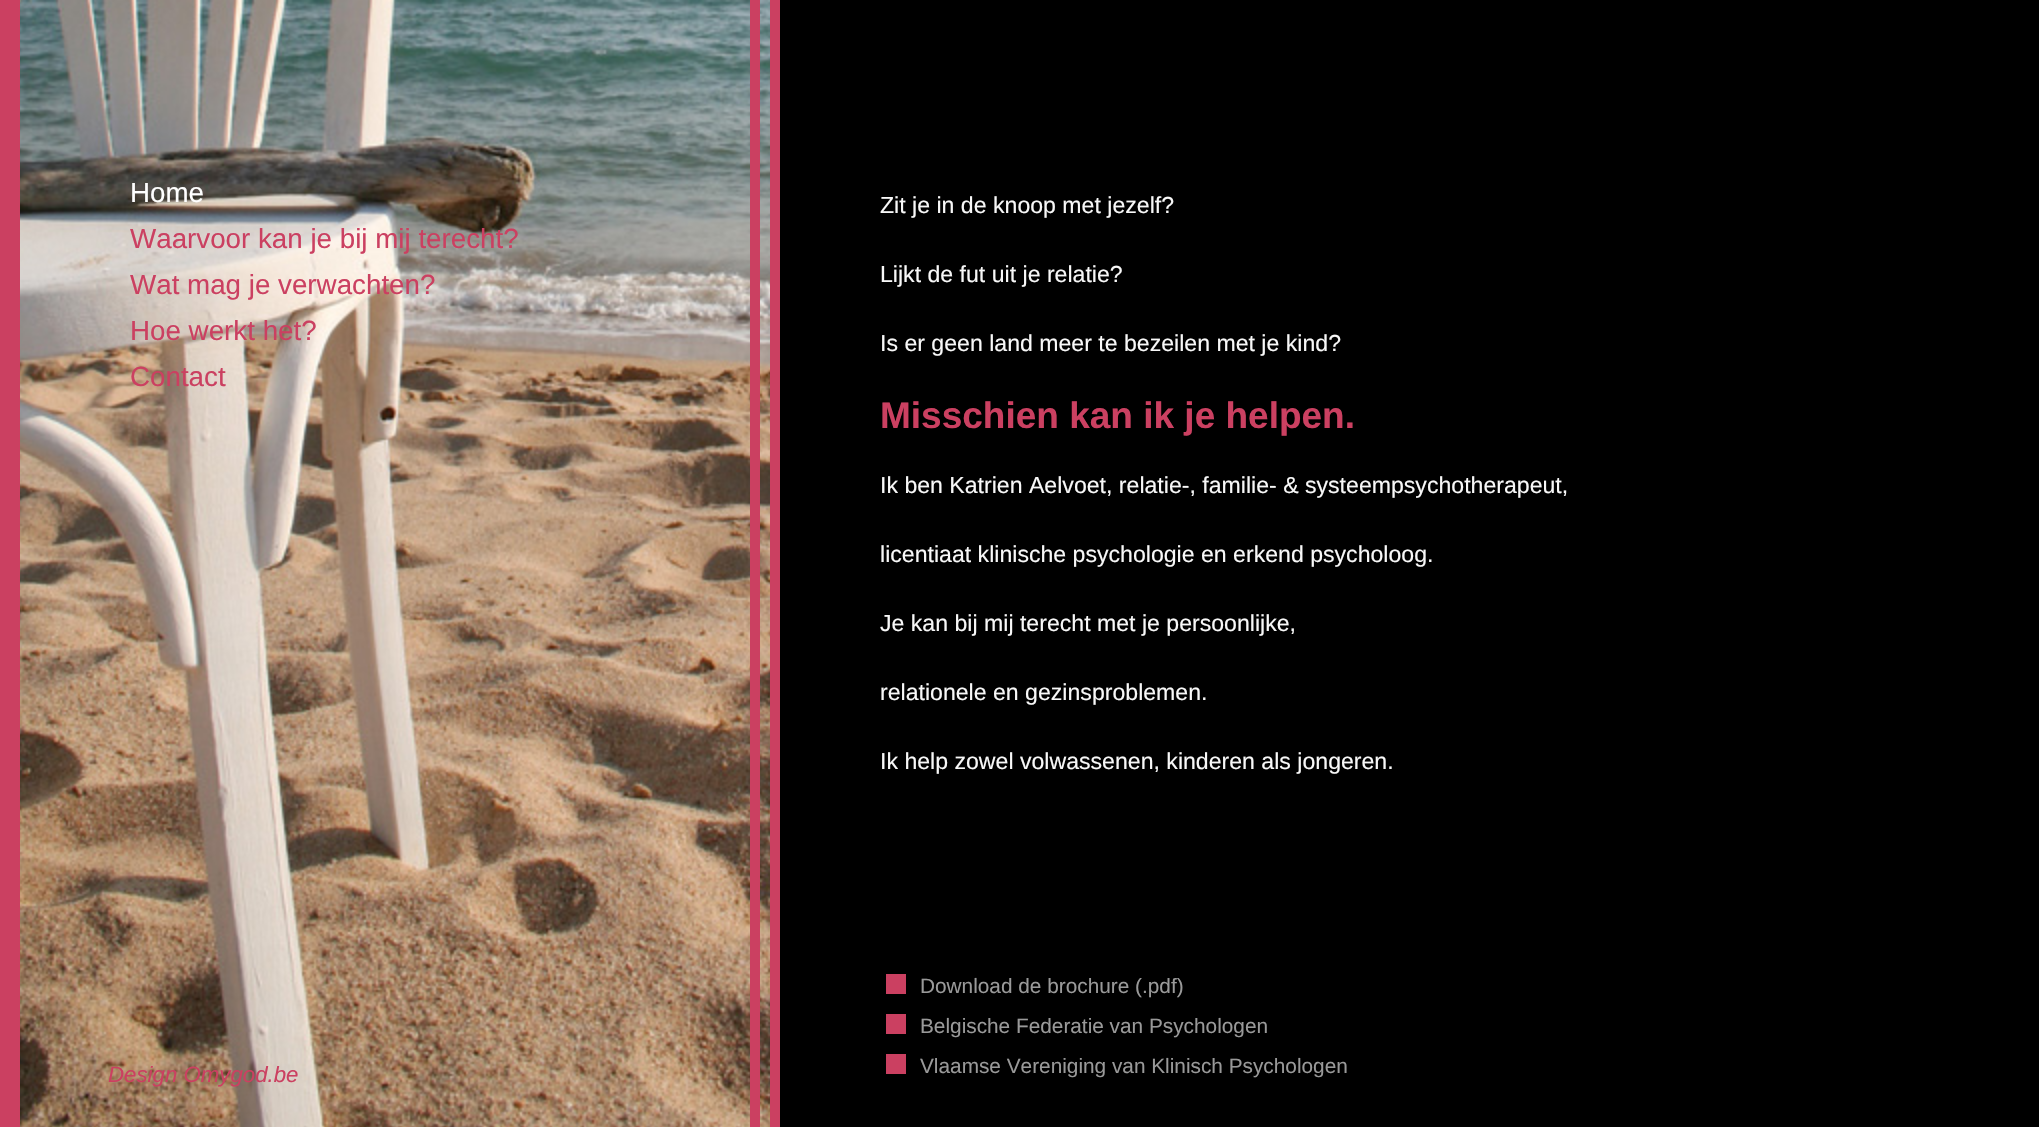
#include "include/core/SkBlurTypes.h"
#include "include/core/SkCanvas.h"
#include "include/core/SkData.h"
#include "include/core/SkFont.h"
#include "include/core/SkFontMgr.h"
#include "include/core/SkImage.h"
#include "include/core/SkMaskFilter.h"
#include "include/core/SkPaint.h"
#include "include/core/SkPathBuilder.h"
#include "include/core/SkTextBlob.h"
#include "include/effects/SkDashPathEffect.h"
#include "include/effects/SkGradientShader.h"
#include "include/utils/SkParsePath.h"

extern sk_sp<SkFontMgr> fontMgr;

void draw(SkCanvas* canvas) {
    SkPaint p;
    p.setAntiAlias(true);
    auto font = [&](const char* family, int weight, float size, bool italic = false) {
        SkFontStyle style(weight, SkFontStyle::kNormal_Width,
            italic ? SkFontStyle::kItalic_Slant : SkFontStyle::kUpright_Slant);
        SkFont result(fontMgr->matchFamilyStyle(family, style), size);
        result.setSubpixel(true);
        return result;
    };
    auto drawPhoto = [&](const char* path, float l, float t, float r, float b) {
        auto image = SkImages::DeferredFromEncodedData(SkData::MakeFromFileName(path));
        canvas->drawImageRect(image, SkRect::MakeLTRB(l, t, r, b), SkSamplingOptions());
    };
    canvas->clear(0xFF000000);
    drawPhoto("media/1.png", 20, 0, 770, 1127);
    {
        const struct { float l, t, r, b; SkColor color; } items[] = {
            {750, 0, 760, 1127, 0xFFCB4061},
            {770, 0, 780, 1127, 0xFFCB4061},
            {0, 0, 20, 1127, 0xFFCB4061},
        };
        for (auto [l, t, r, b, color] : items) {
            p.setColor(color);
            canvas->drawRect(SkRect::MakeLTRB(l, t, r, b), p);
        }
    }
    auto font1 = font("Liberation Sans", 400, 27.75f);
    p.setColor(0xFFFFFFFF);
    canvas->drawString("Home", 130, 202, font1, p);
    p.setColor(0xFFCB4061);
    {
        const struct { const char* s; float x, y; } items[] = {
            {"Waarvoor kan je bij mij terecht?", 130, 248},
            {"Wat mag je verwachten?", 130, 294},
            {"Hoe werkt het?", 130, 340},
            {"Contact", 130, 386},
        };
        for (auto [s, x, y] : items) {
            canvas->drawString(s, x, y, font1, p);
        }
    }
    auto font2 = font("Liberation Sans", 400, 22.25f, true);
    canvas->drawString("Design Omygod.be", 108, 1082, font2, p);
    auto font3 = font("Liberation Sans", 400, 23.1f);
    p.setColor(0xFFF8F8F8);
    {
        const struct { const char* s; float x, y; } items[] = {
            {"Zit je in de knoop met jezelf?", 880, 213},
            {"Lijkt de fut uit je relatie?", 880, 282},
            {"Is er geen land meer te bezeilen met je kind?", 880, 351},
        };
        for (auto [s, x, y] : items) {
            canvas->drawString(s, x, y, font3, p);
        }
    }
    auto font4 = font("Liberation Sans", 700, 37);
    p.setColor(0xFFCB4061);
    canvas->drawString("Misschien kan ik je helpen.", 880, 428, font4, p);
    p.setColor(0xFFF8F8F8);
    {
        const struct { const char* s; float x, y; } items[] = {
            {"Ik ben Katrien Aelvoet, relatie-, familie- & systeempsychotherapeut,", 880, 493},
            {"licentiaat klinische psychologie en erkend psycholoog.", 880, 562},
            {"Je kan bij mij terecht met je persoonlijke,", 880, 631},
            {"relationele en gezinsproblemen.", 880, 700},
            {"Ik help zowel volwassenen, kinderen als jongeren.", 880, 769},
        };
        for (auto [s, x, y] : items) {
            canvas->drawString(s, x, y, font3, p);
        }
    }
    p.setColor(0xFFCB4061);
    canvas->drawRect(SkRect::MakeLTRB(886, 974, 906, 994), p);
    auto font5 = font("Liberation Sans", 400, 20.8f);
    p.setColor(0xFF999999);
    canvas->drawString("Download de brochure (.pdf)", 920, 993, font5, p);
    p.setColor(0xFFCB4061);
    canvas->drawRect(SkRect::MakeLTRB(886, 1014, 906, 1034), p);
    p.setColor(0xFF999999);
    canvas->drawString("Belgische Federatie van Psychologen", 920, 1033, font5, p);
    p.setColor(0xFFCB4061);
    canvas->drawRect(SkRect::MakeLTRB(886, 1054, 906, 1074), p);
    p.setColor(0xFF999999);
    canvas->drawString("Vlaamse Vereniging van Klinisch Psychologen", 920, 1073, font5, p);
}
